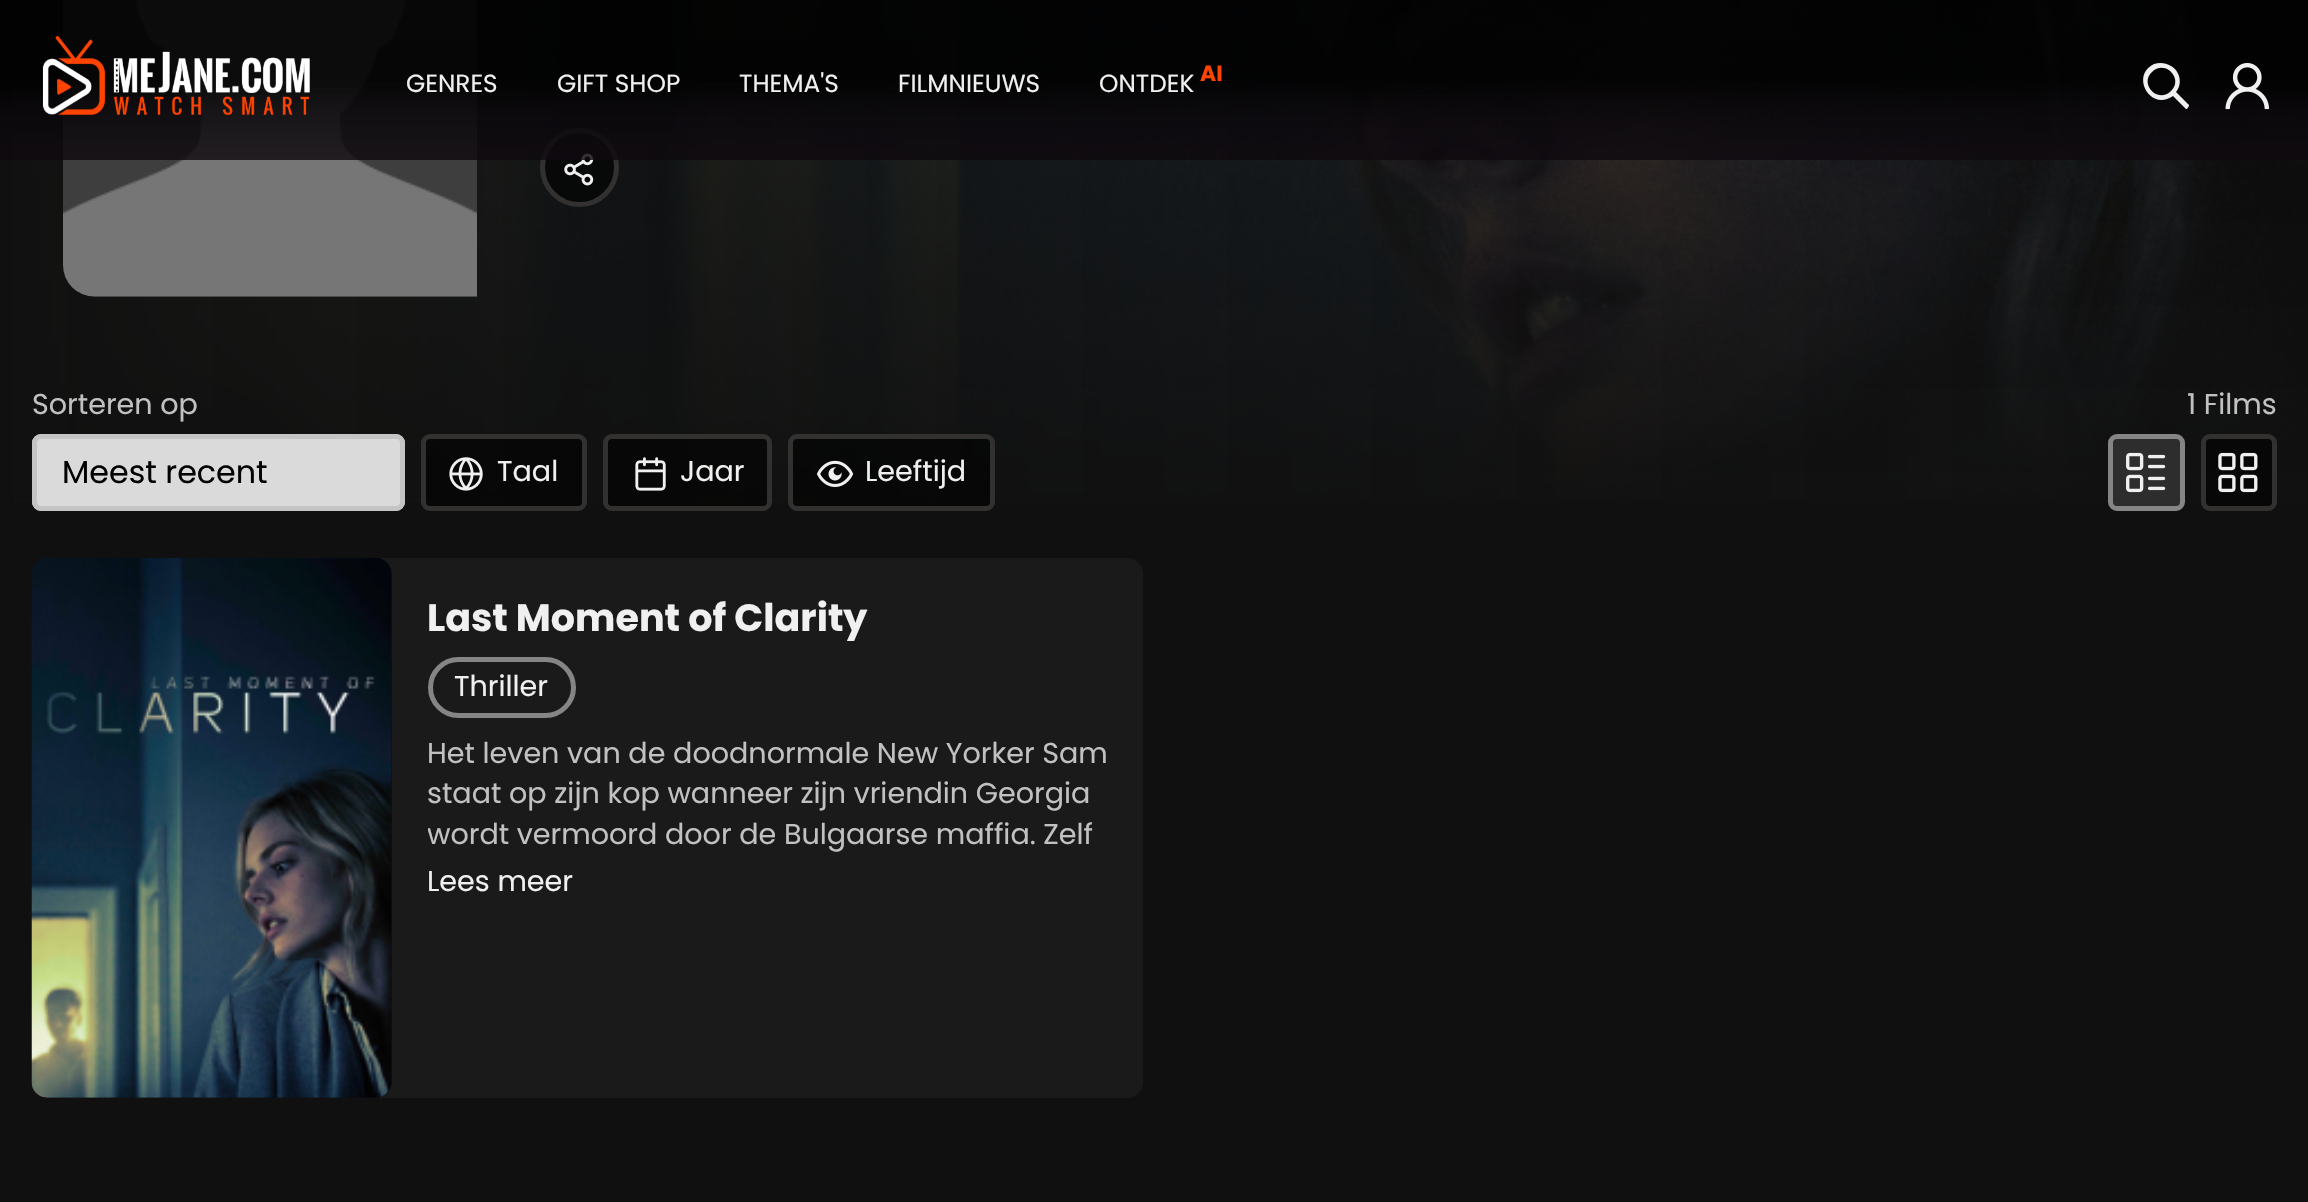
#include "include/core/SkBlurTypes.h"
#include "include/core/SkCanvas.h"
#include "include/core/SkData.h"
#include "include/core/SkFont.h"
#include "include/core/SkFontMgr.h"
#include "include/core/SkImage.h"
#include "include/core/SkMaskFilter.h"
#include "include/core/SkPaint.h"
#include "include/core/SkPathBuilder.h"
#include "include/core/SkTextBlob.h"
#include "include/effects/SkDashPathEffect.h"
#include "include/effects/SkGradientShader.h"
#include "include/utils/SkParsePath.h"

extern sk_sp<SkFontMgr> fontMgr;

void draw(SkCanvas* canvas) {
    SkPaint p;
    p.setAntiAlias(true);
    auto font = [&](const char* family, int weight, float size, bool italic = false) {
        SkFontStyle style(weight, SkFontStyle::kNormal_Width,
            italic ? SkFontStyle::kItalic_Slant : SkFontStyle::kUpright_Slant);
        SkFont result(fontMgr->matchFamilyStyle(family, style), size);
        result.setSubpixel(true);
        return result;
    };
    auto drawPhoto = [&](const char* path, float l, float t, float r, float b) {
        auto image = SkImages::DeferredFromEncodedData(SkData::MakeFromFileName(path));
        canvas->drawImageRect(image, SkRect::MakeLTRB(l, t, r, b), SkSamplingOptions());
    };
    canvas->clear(0xFF101010);
    drawPhoto("media/3.png", 14, 0, 2308, 503);
    {
        const SkColor colors[] = {0x33101010, 0xFF101010};
        const float stops[] = {0, 1};
        const SkPoint ends[] = {{1154, -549}, {1154, 511}};
        p.setShader(SkGradientShader::MakeLinear(ends, colors, stops, 2, SkTileMode::kClamp));
        p.setAlpha(255);
    }
    canvas->drawRect(SkRect::MakeLTRB(14, 0, 2308, 503), p);
    {
        const SkColor colors[] = {0xFF101010, 0x00101010};
        const float stops[] = {0, 1};
        const SkPoint ends[] = {{0, -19}, {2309, -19}};
        p.setShader(SkGradientShader::MakeLinear(ends, colors, stops, 2, SkTileMode::kClamp));
        p.setAlpha(255);
    }
    canvas->drawRect(SkRect::MakeLTRB(14, 0, 2056, 498), p);
    drawPhoto("media/4.png", 63, 0, 477, 297);
    p.setShader(nullptr);
    p.setColor(0x99000000);
    canvas->drawCircle(579.5f, 167.5f, 37, p);
    p.setStyle(SkPaint::kStroke_Style);
    p.setStrokeWidth(5);
    p.setColor(0xFF323130);
    canvas->drawCircle(579.5f, 167.5f, 37, p);
    drawPhoto("media/5.png", 564, 153, 594, 186);
    p.setStyle(SkPaint::kFill_Style);
    p.setColor(0xBF000000);
    canvas->drawRect(SkRect::MakeLTRB(0, 0, 2308, 160), p);
    {
        const SkColor colors[] = {0x9C000000, 0xA1000000, 0x47261A28};
        const float stops[] = {0, 0.5f, 1};
        const SkPoint ends[] = {{1154, 0}, {1154, 160}};
        p.setShader(SkGradientShader::MakeLinear(ends, colors, stops, 3, SkTileMode::kClamp));
        p.setAlpha(255);
    }
    canvas->drawRect(SkRect::MakeLTRB(0, 0, 2308, 160), p);
    drawPhoto("media/1.png", 42, 36, 310, 115);
    auto font1 = font("Poppins", 400, 24.75f);
    p.setShader(nullptr);
    p.setColor(0xFFF0F0F0);
    {
        const struct { const char* s; float x, y; } items[] = {
            {"GENRES", 406, 92},
            {"GIFT SHOP", 557, 92},
            {"THEMA'S", 739, 92},
            {"FILMNIEUWS", 898, 92},
            {"ONTDEK", 1099, 92},
        };
        for (auto [s, x, y] : items) {
            canvas->drawString(s, x, y, font1, p);
        }
    }
    auto font2 = font("Poppins", 700, 22);
    p.setColor(0xFFFF4300);
    canvas->drawString("AI", 1200, 81, font2, p);
    p.setColor(0xFFF0F0F0);
    canvas->drawPath(SkPathBuilder().moveTo(2189, 105).lineTo(2176, 92).cubicTo(2183, 84, 2180, 71, 2171, 66).cubicTo(2166, 63, 2160, 62, 2154, 64).cubicTo(2130, 75, 2150, 112, 2173, 96).lineTo(2186, 109).lineTo(2187, 109).lineTo(2189, 106).close().moveTo(2171, 91).cubicTo(2158, 104, 2139, 84, 2152, 72).cubicTo(2165, 59, 2184, 79, 2171, 91).close().detach(), p);
    drawPhoto("media/2.png", 2225, 62, 2269, 110);
    auto font3 = font("Poppins", 400, 28.6f);
    p.setColor(0xFFC1C1C1);
    canvas->drawString("Sorteren op", 32, 414, font3, p);
    p.setColor(0xE6F0F0F0);
    canvas->drawRoundRect(SkRect::MakeLTRB(32, 434, 405, 511), 9, 9, p);
    p.setStyle(SkPaint::kStroke_Style);
    p.setColor(0xE6C1C1C1);
    canvas->drawRoundRect(SkRect::MakeLTRB(34.5f, 436.5f, 402.5f, 508.5f), 6.5f, 6.5f, p);
    auto font4 = font("Poppins", 400, 31.75f);
    p.setStyle(SkPaint::kFill_Style);
    p.setColor(0xFF020202);
    canvas->drawString("Meest recent", 62, 483, font4, p);
    p.setColor(0x99000000);
    canvas->drawRoundRect(SkRect::MakeLTRB(423.5f, 436.5f, 584.5f, 508.5f), 6.5f, 6.5f, p);
    p.setStyle(SkPaint::kStroke_Style);
    p.setColor(0xFF323130);
    canvas->drawRoundRect(SkRect::MakeLTRB(423.5f, 436.5f, 584.5f, 508.5f), 6.5f, 6.5f, p);
    drawPhoto("media/6.png", 449, 457, 483, 491);
    p.setStyle(SkPaint::kFill_Style);
    p.setColor(0xFFF0F0F0);
    canvas->drawString("Taal", 497, 481, font3, p);
    p.setColor(0x99000000);
    canvas->drawRoundRect(SkRect::MakeLTRB(605.5f, 436.5f, 769.5f, 508.5f), 6.5f, 6.5f, p);
    p.setStyle(SkPaint::kStroke_Style);
    p.setColor(0xFF323130);
    canvas->drawRoundRect(SkRect::MakeLTRB(605.5f, 436.5f, 769.5f, 508.5f), 6.5f, 6.5f, p);
    drawPhoto("media/7.png", 635, 457, 666, 491);
    p.setStyle(SkPaint::kFill_Style);
    p.setColor(0xFFF0F0F0);
    canvas->drawString("Jaar", 680, 481, font3, p);
    p.setColor(0x99000000);
    canvas->drawRoundRect(SkRect::MakeLTRB(790.5f, 436.5f, 992.5f, 508.5f), 6.5f, 6.5f, p);
    p.setStyle(SkPaint::kStroke_Style);
    p.setColor(0xFF323130);
    canvas->drawRoundRect(SkRect::MakeLTRB(790.5f, 436.5f, 992.5f, 508.5f), 6.5f, 6.5f, p);
    drawPhoto("media/8.png", 816, 460, 854, 487);
    p.setStyle(SkPaint::kFill_Style);
    p.setColor(0xFFF0F0F0);
    canvas->drawString("Leeftijd", 865, 481, font3, p);
    p.setColor(0xFFC1C1C1);
    canvas->drawString("1 Films", 2187, 414, font3, p);
    p.setColor(0xFF2D2D2D);
    canvas->drawRoundRect(SkRect::MakeLTRB(2110.5f, 436.5f, 2182.5f, 508.5f), 6.5f, 6.5f, p);
    p.setStyle(SkPaint::kStroke_Style);
    p.setColor(0xFF858585);
    canvas->drawRoundRect(SkRect::MakeLTRB(2110.5f, 436.5f, 2182.5f, 508.5f), 6.5f, 6.5f, p);
    drawPhoto("media/9.png", 2126, 452, 2166, 493);
    p.setStyle(SkPaint::kFill_Style);
    p.setColor(0x99000000);
    canvas->drawRoundRect(SkRect::MakeLTRB(2203.5f, 436.5f, 2274.5f, 508.5f), 6.5f, 6.5f, p);
    p.setStyle(SkPaint::kStroke_Style);
    p.setColor(0xFF323130);
    canvas->drawRoundRect(SkRect::MakeLTRB(2203.5f, 436.5f, 2274.5f, 508.5f), 6.5f, 6.5f, p);
    drawPhoto("media/10.png", 2218, 452, 2258, 493);
    p.setStyle(SkPaint::kFill_Style);
    p.setColor(0xFF1A1A1A);
    canvas->drawPath(SkPathBuilder().moveTo(48, 558).lineTo(392, 558).lineTo(392, 1098).lineTo(48, 1098).cubicTo(39, 1098, 32, 1091, 32, 1082).lineTo(32, 574).cubicTo(32, 565, 39, 558, 48, 558).close().detach(), p);
    p.setColor(0xFF101010);
    canvas->drawRoundRect(SkRect::MakeLTRB(32, 558, 392, 1098), 16, 16, p);
    drawPhoto("media/11.png", 31, 558, 392, 1098);
    p.setColor(0xFF1A1A1A);
    canvas->drawPath(SkPathBuilder().moveTo(392, 558).lineTo(1127, 558).cubicTo(1136, 558, 1143, 565, 1143, 574).lineTo(1143, 1082).cubicTo(1143, 1091, 1136, 1098, 1127, 1098).lineTo(392, 1098).close().detach(), p);
    canvas->save();
    canvas->clipRect(SkRect::MakeLTRB(428, 592, 1107, 641));
    auto font5 = font("Poppins", 700, 38.1f);
    p.setColor(0xFFF0F0F0);
    canvas->drawString("Last Moment of Clarity", 427, 631, font5, p);
    canvas->restore();
    p.setStyle(SkPaint::kStroke_Style);
    p.setColor(0xFF858585);
    canvas->drawRoundRect(SkRect::MakeLTRB(430.5f, 659.5f, 573.5f, 715.5f), 28, 28, p);
    p.setStyle(SkPaint::kFill_Style);
    p.setColor(0xFFF0F0F0);
    canvas->drawString("Thriller", 454, 696, font3, p);
    p.setColor(0xFFC1C1C1);
    canvas->drawString("Het leven van de doodnormale New Yorker Sam", 427, 763, font3, p);
    canvas->drawString("staat op zijn kop wanneer zijn vriendin Georgia", 427, 803, font3, p);
    canvas->save();
    canvas->clipRect(SkRect::MakeLTRB(428, 734, 1107, 855));
    canvas->drawString("wordt vermoord door de Bulgaarse maffia. Zelf", 427, 844, font3, p);
    canvas->restore();
    p.setColor(0xFFF0F0F0);
    canvas->drawString("Lees meer", 427, 891, font3, p);
}
